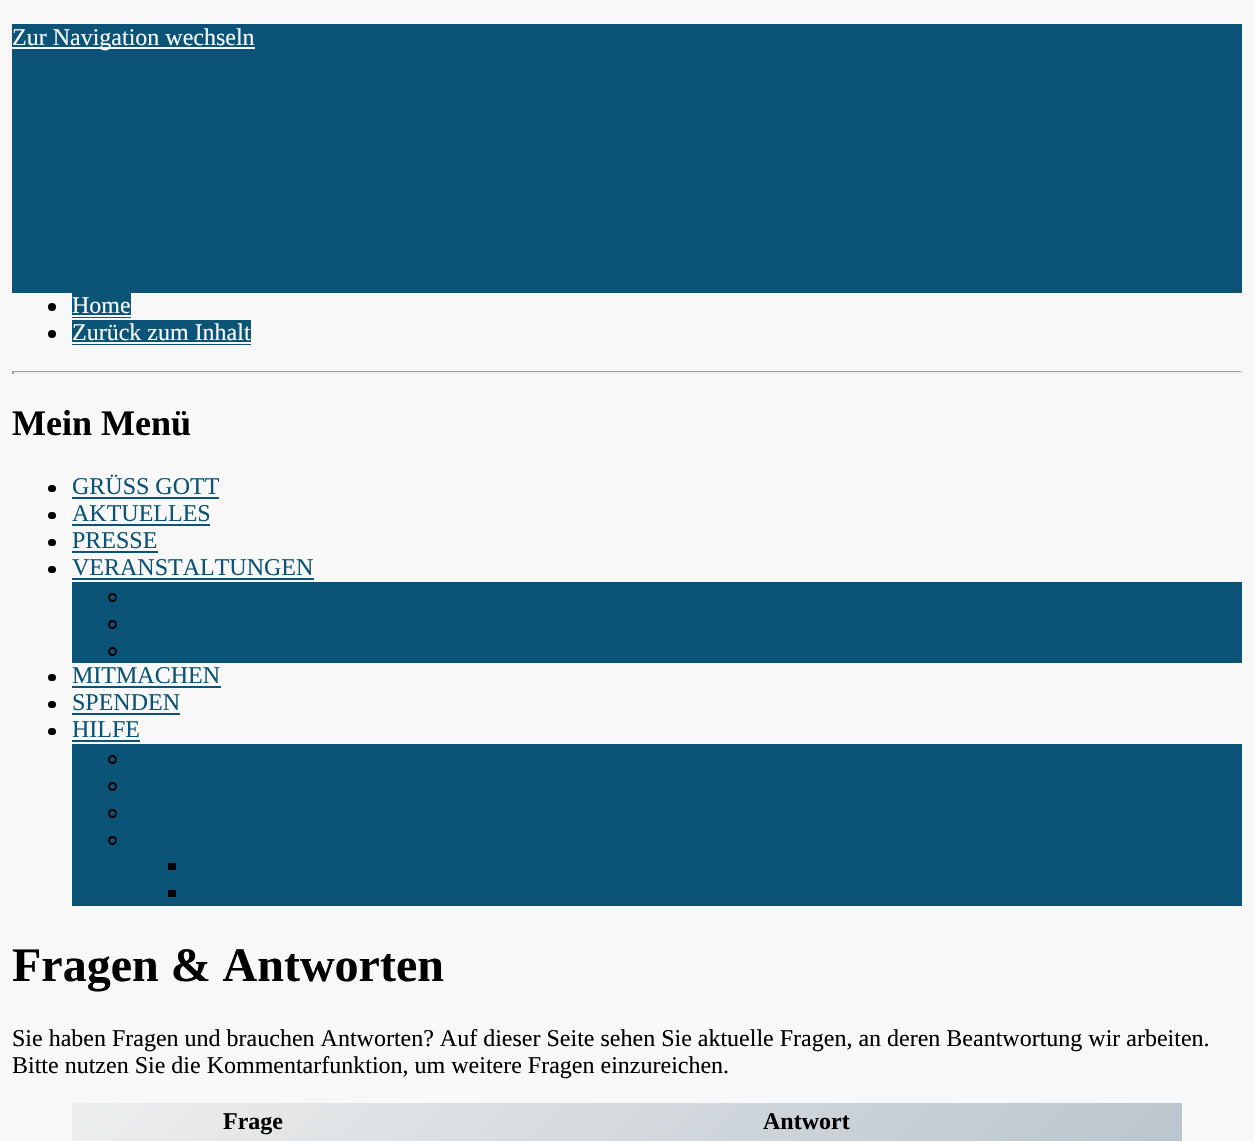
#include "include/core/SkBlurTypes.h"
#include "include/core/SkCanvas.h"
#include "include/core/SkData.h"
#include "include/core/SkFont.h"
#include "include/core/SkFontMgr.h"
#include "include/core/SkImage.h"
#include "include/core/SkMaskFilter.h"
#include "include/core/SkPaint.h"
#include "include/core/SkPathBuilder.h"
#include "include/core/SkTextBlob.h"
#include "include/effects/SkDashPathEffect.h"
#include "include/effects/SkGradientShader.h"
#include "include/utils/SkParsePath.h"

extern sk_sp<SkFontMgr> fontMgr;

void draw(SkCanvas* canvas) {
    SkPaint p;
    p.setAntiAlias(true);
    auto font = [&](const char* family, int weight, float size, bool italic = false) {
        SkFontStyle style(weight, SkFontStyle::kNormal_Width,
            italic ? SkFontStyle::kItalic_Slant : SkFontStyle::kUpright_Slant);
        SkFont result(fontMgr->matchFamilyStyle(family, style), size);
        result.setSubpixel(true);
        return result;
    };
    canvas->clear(0xFFF8F8F9);
    p.setColor(0xFF0B5377);
    canvas->drawRect(SkRect::MakeLTRB(12, 24, 1242, 293), p);
    p.setColor(0xFFF8F8F9);
    canvas->drawRect(SkRect::MakeLTRB(12, 47, 255, 49), p);
    auto font1 = font("Liberation Serif", 400, 24);
    canvas->drawString("Zur Navigation wechseln", 12, 45, font1, p);
    p.setColor(0xFF000000);
    canvas->drawCircle(52, 307, 4, p);
    p.setColor(0xFF0B5377);
    canvas->drawRect(SkRect::MakeLTRB(72, 293, 131, 318), p);
    p.setColor(0xFFF8F8F9);
    canvas->drawString("Home", 72, 313, font1, p);
    canvas->drawRect(SkRect::MakeLTRB(72, 315, 131, 317), p);
    p.setColor(0xFF000000);
    canvas->drawCircle(52, 334, 4, p);
    p.setColor(0xFF0B5377);
    canvas->drawRect(SkRect::MakeLTRB(72, 320, 251, 345), p);
    p.setColor(0xFFF8F8F9);
    canvas->drawString("Zurück zum Inhalt", 72, 340, font1, p);
    {
        const struct { float l, t, r, b; SkColor color; } items[] = {
            {72, 342, 251, 344, 0xFFF8F8F9},
            {12, 371, 1242, 372, 0xFF9F9F9F},
            {1241, 371, 1243, 374, 0xFFEEEEEE},
            {12, 372, 1242, 374, 0xFFEEEEEE},
            {12, 371, 14, 374, 0xFF9F9F9F},
        };
        for (auto [l, t, r, b, color] : items) {
            p.setColor(color);
            canvas->drawRect(SkRect::MakeLTRB(l, t, r, b), p);
        }
    }
    auto font2 = font("Liberation Serif", 700, 36);
    p.setColor(0xFF000000);
    canvas->drawString("Mein Menü", 12, 435, font2, p);
    canvas->drawRoundRect(SkRect::MakeLTRB(48, 485, 56, 492), 3.5f, 3.5f, p);
    p.setColor(0xFF0B5377);
    canvas->drawString("GRÜSS GOTT", 72, 494, font1, p);
    canvas->drawRect(SkRect::MakeLTRB(72, 497, 219, 499), p);
    p.setColor(0xFF000000);
    canvas->drawRoundRect(SkRect::MakeLTRB(48, 512, 56, 519), 3.5f, 3.5f, p);
    p.setColor(0xFF0B5377);
    canvas->drawString("AKTUELLES", 72, 521, font1, p);
    canvas->drawRect(SkRect::MakeLTRB(72, 524, 210, 526), p);
    p.setColor(0xFF000000);
    canvas->drawRoundRect(SkRect::MakeLTRB(48, 539, 56, 546), 3.5f, 3.5f, p);
    p.setColor(0xFF0B5377);
    canvas->drawString("PRESSE", 72, 548, font1, p);
    canvas->drawRect(SkRect::MakeLTRB(72, 551, 158, 553), p);
    p.setColor(0xFF000000);
    canvas->drawRoundRect(SkRect::MakeLTRB(48, 566, 56, 573), 3.5f, 3.5f, p);
    p.setColor(0xFF0B5377);
    canvas->drawString("VERANSTALTUNGEN", 72, 575, font1, p);
    canvas->drawRect(SkRect::MakeLTRB(72, 578, 314, 580), p);
    canvas->drawRect(SkRect::MakeLTRB(72, 582, 1242, 663), p);
    p.setStyle(SkPaint::kStroke_Style);
    p.setStrokeWidth(2);
    p.setColor(0xFF000000);
    canvas->drawCircle(112.5f, 597.5f, 3.5f, p);
    canvas->drawCircle(112.5f, 624.5f, 3.5f, p);
    canvas->drawCircle(112.5f, 651.5f, 3.5f, p);
    p.setStyle(SkPaint::kFill_Style);
    canvas->drawRoundRect(SkRect::MakeLTRB(48, 674, 56, 681), 3.5f, 3.5f, p);
    p.setColor(0xFF0B5377);
    canvas->drawString("MITMACHEN", 72, 683, font1, p);
    canvas->drawRect(SkRect::MakeLTRB(72, 686, 221, 688), p);
    p.setColor(0xFF000000);
    canvas->drawRoundRect(SkRect::MakeLTRB(48, 701, 56, 708), 3.5f, 3.5f, p);
    p.setColor(0xFF0B5377);
    canvas->drawString("SPENDEN", 72, 710, font1, p);
    canvas->drawRect(SkRect::MakeLTRB(72, 713, 180, 715), p);
    p.setColor(0xFF000000);
    canvas->drawRoundRect(SkRect::MakeLTRB(48, 728, 56, 735), 3.5f, 3.5f, p);
    p.setColor(0xFF0B5377);
    canvas->drawString("HILFE", 72, 737, font1, p);
    canvas->drawRect(SkRect::MakeLTRB(72, 740, 140, 742), p);
    canvas->drawRect(SkRect::MakeLTRB(72, 744, 1242, 906), p);
    p.setStyle(SkPaint::kStroke_Style);
    p.setColor(0xFF000000);
    canvas->drawCircle(112.5f, 759.5f, 3.5f, p);
    canvas->drawCircle(112.5f, 786.5f, 3.5f, p);
    canvas->drawCircle(112.5f, 813.5f, 3.5f, p);
    canvas->drawCircle(112.5f, 840.5f, 3.5f, p);
    p.setStyle(SkPaint::kFill_Style);
    canvas->drawRect(SkRect::MakeLTRB(168, 863, 176, 870), p);
    canvas->drawRect(SkRect::MakeLTRB(168, 890, 176, 897), p);
    auto font3 = font("Liberation Serif", 700, 48);
    canvas->drawString("Fragen & Antworten", 12, 981, font3, p);
    canvas->drawString("Sie haben Fragen und brauchen Antworten? Auf dieser Seite sehen Sie aktuelle Fragen, an deren Beantwortung wir arbeiten.", 12, 1046, font1, p);
    canvas->drawString("Bitte nutzen Sie die Kommentarfunktion, um weitere Fragen einzureichen.", 12, 1073, font1, p);
    {
        const SkColor colors[] = {0xFFEEEEEE, 0xFFA9B8C3};
        const float stops[] = {0, 1};
        const SkPoint ends[] = {{248, 927}, {1007, 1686}};
        p.setShader(SkGradientShader::MakeLinear(ends, colors, stops, 2, SkTileMode::kClamp));
        p.setAlpha(255);
    }
    canvas->drawRect(SkRect::MakeLTRB(72, 1103, 1182, 1141), p);
    auto font4 = font("Liberation Serif", 700, 24);
    p.setShader(nullptr);
    p.setColor(0xFF000000);
    canvas->drawString("Frage", 223, 1129, font4, p);
    canvas->drawString("Antwort", 763, 1129, font4, p);
}
